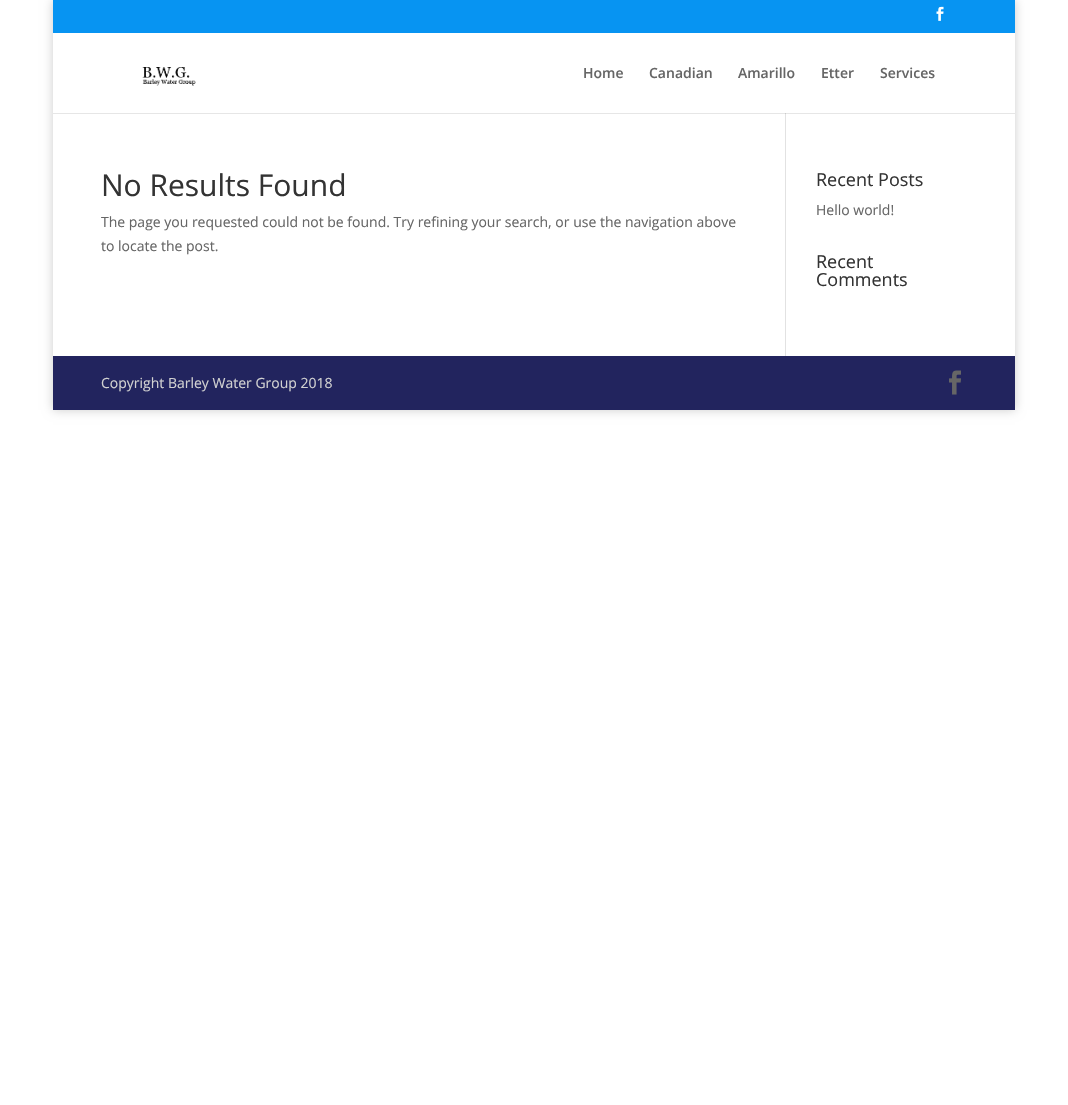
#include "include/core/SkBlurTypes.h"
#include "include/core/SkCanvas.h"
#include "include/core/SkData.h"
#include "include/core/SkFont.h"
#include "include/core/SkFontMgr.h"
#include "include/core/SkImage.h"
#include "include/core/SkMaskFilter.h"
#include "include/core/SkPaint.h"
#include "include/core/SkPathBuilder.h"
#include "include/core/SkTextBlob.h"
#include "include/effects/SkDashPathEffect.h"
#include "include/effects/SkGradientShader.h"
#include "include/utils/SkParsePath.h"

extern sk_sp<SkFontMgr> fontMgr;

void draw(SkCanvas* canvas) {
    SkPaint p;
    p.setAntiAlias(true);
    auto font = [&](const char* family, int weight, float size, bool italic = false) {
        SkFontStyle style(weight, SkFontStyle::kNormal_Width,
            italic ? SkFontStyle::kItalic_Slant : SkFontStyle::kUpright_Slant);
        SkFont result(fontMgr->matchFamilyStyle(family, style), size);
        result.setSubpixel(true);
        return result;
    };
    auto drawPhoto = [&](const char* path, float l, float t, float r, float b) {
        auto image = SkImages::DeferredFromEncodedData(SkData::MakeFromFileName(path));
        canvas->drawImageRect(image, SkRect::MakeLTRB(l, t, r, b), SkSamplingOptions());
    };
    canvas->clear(0xFFFFFFFF);
    p.setColor(0xFFE6E6E6);
    canvas->drawRect(SkRect::MakeLTRB(53, 113, 1015, 114), p);
    canvas->save();
    canvas->clipPath(SkPathBuilder(SkPathFillType::kEvenOdd).moveTo(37, 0).lineTo(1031, 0).lineTo(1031, 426).lineTo(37, 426).close().moveTo(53, 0).lineTo(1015, 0).lineTo(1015, 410).lineTo(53, 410).close().detach(), true);
    p.setColor(0x33000000);
    p.setMaskFilter(SkMaskFilter::MakeBlur(kNormal_SkBlurStyle, 5));
    canvas->drawRect(SkRect::MakeLTRB(53, 0, 1015, 410), p);
    p.setMaskFilter(nullptr);
    canvas->restore();
    p.setColor(0xFF0794F2);
    canvas->drawRect(SkRect::MakeLTRB(53, 0, 1015, 33), p);
    drawPhoto("media/1.png", 936, 6, 944, 21);
    p.setColor(0xFFE2E2E2);
    canvas->drawRect(SkRect::MakeLTRB(785, 112, 786, 356), p);
    p.setColor(0xFFFFFFFF);
    canvas->drawRect(SkRect::MakeLTRB(785, 112, 786, 113), p);
    drawPhoto("media/2.png", 142, 67, 196, 86);
    auto font1 = font("Open Sans", 600, 14);
    p.setColor(0xFF666666);
    {
        const struct { const char* s; float x, y; } items[] = {
            {"Home", 583, 78},
            {"Canadian", 649, 78},
            {"Amarillo", 738, 78},
            {"Etter", 821, 78},
            {"Services", 880, 78},
        };
        for (auto [s, x, y] : items) {
            canvas->drawString(s, x, y, font1, p);
        }
    }
    p.setColor(0xFFCBCBCB);
    canvas->drawRect(SkRect::MakeLTRB(785, 113, 786, 114), p);
    auto font2 = font("Open Sans", 400, 30);
    p.setColor(0xFF333333);
    canvas->drawString("No Results Found", 101, 196, font2, p);
    auto font3 = font("Open Sans", 400, 14);
    p.setColor(0xFF666666);
    canvas->drawString("The page you requested could not be found. Try refining your search, or use the navigation above", 101, 227, font3, p);
    canvas->drawString("to locate the post.", 101, 251, font3, p);
    auto font4 = font("Open Sans", 400, 18);
    p.setColor(0xFF333333);
    canvas->drawString("Recent Posts", 816, 186, font4, p);
    p.setColor(0xFF666666);
    canvas->drawString("Hello world!", 816, 215, font3, p);
    p.setColor(0xFF333333);
    canvas->drawString("Recent", 816, 268, font4, p);
    canvas->drawString("Comments", 816, 286, font4, p);
    p.setColor(0xFF22245E);
    canvas->drawRect(SkRect::MakeLTRB(53, 356, 1015, 410), p);
    p.setColor(0xFFD1D1D1);
    canvas->drawString("Copyright Barley Water Group 2018", 101, 388, font3, p);
    drawPhoto("media/3.png", 949, 370, 961, 395);
}
